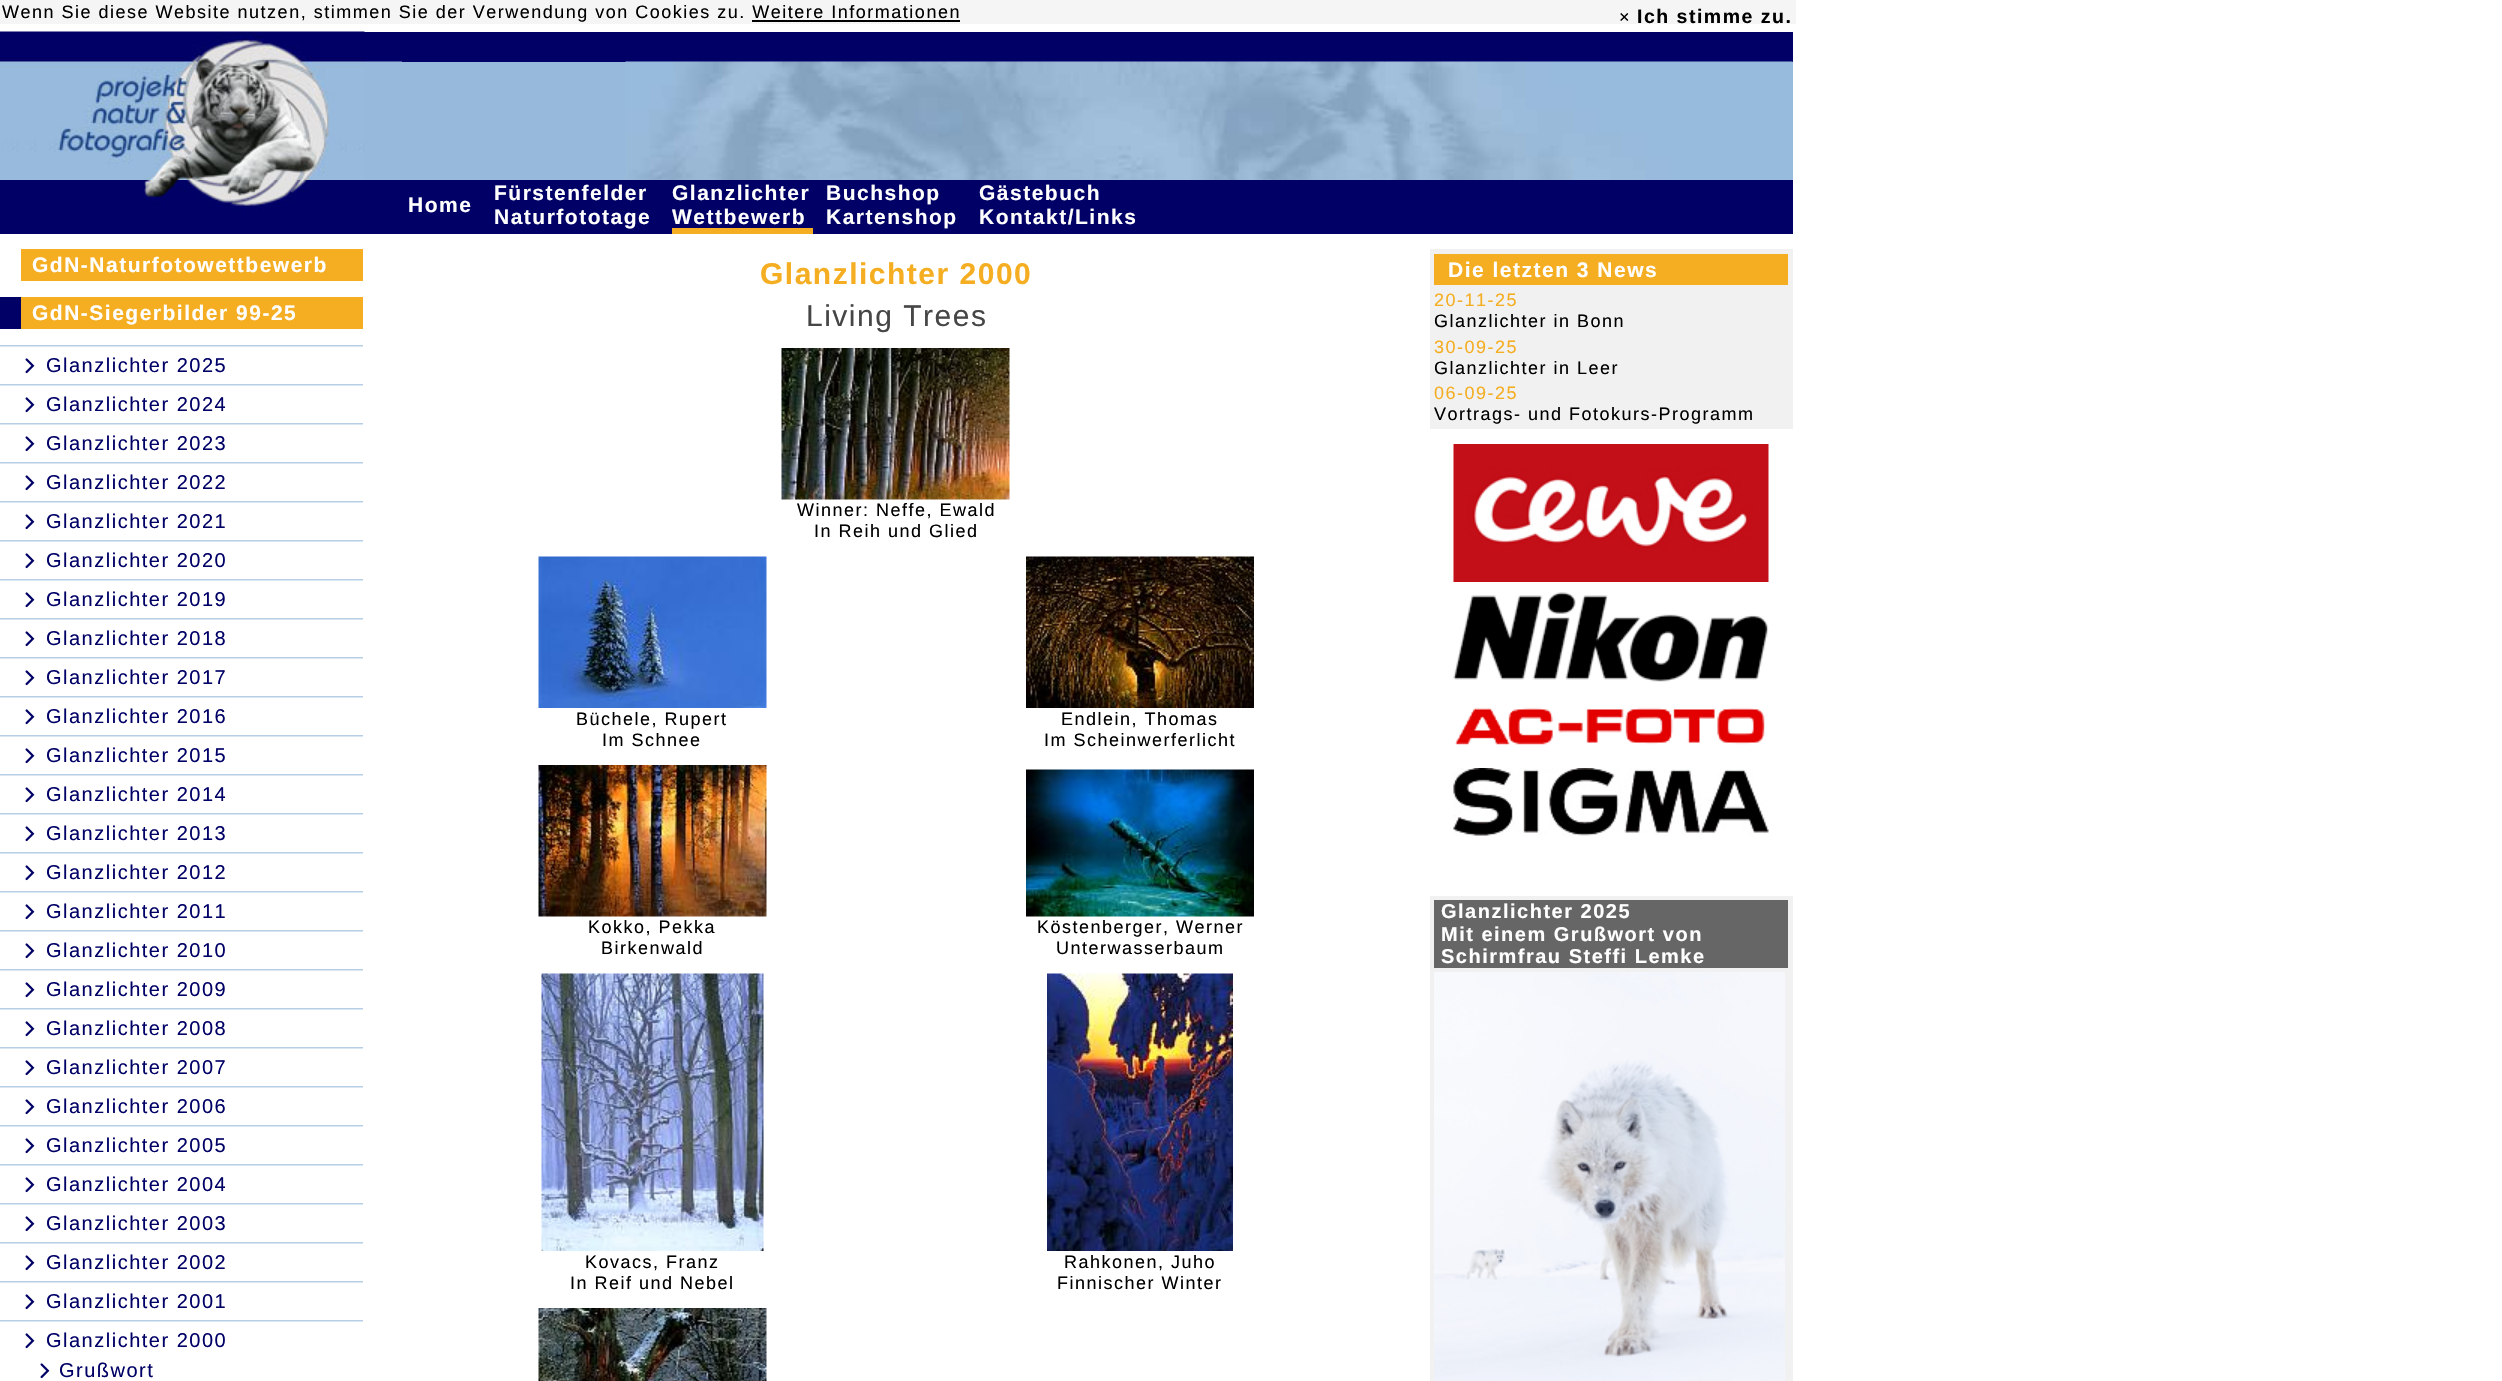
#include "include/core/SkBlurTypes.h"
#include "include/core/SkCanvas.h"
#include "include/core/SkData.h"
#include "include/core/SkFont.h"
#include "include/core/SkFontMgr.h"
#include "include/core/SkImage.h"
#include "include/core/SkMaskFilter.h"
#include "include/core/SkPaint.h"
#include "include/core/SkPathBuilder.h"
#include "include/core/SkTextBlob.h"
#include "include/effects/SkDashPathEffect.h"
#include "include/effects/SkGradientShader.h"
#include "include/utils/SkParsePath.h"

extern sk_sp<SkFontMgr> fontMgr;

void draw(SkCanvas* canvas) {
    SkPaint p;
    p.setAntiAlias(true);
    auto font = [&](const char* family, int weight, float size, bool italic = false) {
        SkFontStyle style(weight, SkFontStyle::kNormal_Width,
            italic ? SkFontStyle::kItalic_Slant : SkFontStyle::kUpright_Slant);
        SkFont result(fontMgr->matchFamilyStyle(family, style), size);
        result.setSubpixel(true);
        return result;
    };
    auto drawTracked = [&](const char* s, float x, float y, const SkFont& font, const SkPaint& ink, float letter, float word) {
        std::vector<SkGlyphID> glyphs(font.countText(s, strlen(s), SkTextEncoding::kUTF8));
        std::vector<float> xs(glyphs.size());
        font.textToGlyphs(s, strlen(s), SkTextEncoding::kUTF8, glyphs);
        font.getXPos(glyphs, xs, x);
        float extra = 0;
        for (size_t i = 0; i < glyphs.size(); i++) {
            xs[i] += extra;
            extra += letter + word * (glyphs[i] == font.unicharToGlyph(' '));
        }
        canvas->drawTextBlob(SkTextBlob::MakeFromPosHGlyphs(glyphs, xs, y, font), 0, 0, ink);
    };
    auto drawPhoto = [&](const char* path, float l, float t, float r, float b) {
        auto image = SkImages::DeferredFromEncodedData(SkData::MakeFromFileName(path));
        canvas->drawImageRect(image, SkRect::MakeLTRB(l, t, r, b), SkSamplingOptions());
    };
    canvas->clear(0xFFFFFFFF);
    p.setColor(0xFFF5F5F5);
    canvas->drawRect(SkRect::MakeLTRB(0, 0, 1796, 24), p);
    auto font1 = font("Liberation Sans", 400, 18);
    p.setColor(0xFF000000);
    drawTracked("Wenn Sie diese Website nutzen, stimmen Sie der Verwendung von Cookies zu. Weitere Informationen", 2, 18, font1, p, 1.5f, 0);
    canvas->drawRect(SkRect::MakeLTRB(752, 20, 960, 22), p);
    drawTracked("×", 1619, 23, font1, p, 1.5f, 0);
    auto font2 = font("Liberation Sans", 700, 19.5f);
    drawTracked("Ich stimme zu.", 1637, 23, font2, p, 1.5f, 0);
    p.setColor(0xFF000066);
    canvas->drawRect(SkRect::MakeLTRB(364, 32, 1793, 62), p);
    p.setColor(0xFF97BADC);
    canvas->drawRect(SkRect::MakeLTRB(364, 62, 1793, 180), p);
    drawPhoto("media/1.png", 0, 31, 365, 180);
    drawPhoto("media/2.png", 364, 61, 402, 62);
    drawPhoto("media/3.png", 625, 61, 1385, 180);
    drawPhoto("media/4.png", 1384, 61, 1430, 180);
    drawPhoto("media/5.png", 1429, 61, 1793, 180);
    p.setColor(0xFF000066);
    canvas->drawRect(SkRect::MakeLTRB(0, 180, 1793, 234), p);
    drawPhoto("media/6.png", 144, 180, 310, 214);
    auto font3 = font("Liberation Sans", 700, 21);
    p.setColor(0xFFFFFFFF);
    {
        const struct { const char* s; float x, y; } items[] = {
            {"Home", 408, 212},
            {"Fürstenfelder", 494, 200},
            {"Naturfototage", 494, 224},
            {"Glanzlichter", 672, 200},
            {"Wettbewerb", 672, 224},
            {"Buchshop", 826, 200},
            {"Kartenshop", 826, 224},
            {"Gästebuch", 979, 200},
            {"Kontakt/Links", 979, 224},
        };
        for (auto [s, x, y] : items) {
            drawTracked(s, x, y, font3, p, 1.5f, 0);
        }
    }
    p.setColor(0xFFF5AE22);
    canvas->drawRect(SkRect::MakeLTRB(672, 228, 813, 234), p);
    canvas->drawRect(SkRect::MakeLTRB(21, 249, 363, 281), p);
    p.setColor(0xFFFFFFFF);
    drawTracked("GdN-Naturfotowettbewerb", 32, 272, font3, p, 1.5f, 0);
    p.setColor(0xFF000066);
    canvas->drawRect(SkRect::MakeLTRB(0, 297, 21, 329), p);
    p.setColor(0xFFF5AE22);
    canvas->drawRect(SkRect::MakeLTRB(21, 297, 363, 329), p);
    p.setColor(0xFFFFFFFF);
    drawTracked("GdN-Siegerbilder 99-25", 32, 320, font3, p, 1.5f, 0);
    drawPhoto("media/7.png", 0, 345, 363, 347);
    drawPhoto("media/8.png", 25, 358, 35, 374);
    auto font4 = font("Liberation Sans", 400, 20);
    p.setColor(0xFF000066);
    drawTracked("Glanzlichter 2025", 46, 372, font4, p, 1.5f, 0);
    drawPhoto("media/7.png", 0, 384, 363, 386);
    drawPhoto("media/8.png", 25, 397, 35, 413);
    drawTracked("Glanzlichter 2024", 46, 411, font4, p, 1.5f, 0);
    drawPhoto("media/7.png", 0, 423, 363, 425);
    drawPhoto("media/8.png", 25, 436, 35, 452);
    drawTracked("Glanzlichter 2023", 46, 450, font4, p, 1.5f, 0);
    drawPhoto("media/7.png", 0, 462, 363, 464);
    drawPhoto("media/8.png", 25, 475, 35, 491);
    drawTracked("Glanzlichter 2022", 46, 489, font4, p, 1.5f, 0);
    drawPhoto("media/7.png", 0, 501, 363, 503);
    drawPhoto("media/8.png", 25, 514, 35, 530);
    drawTracked("Glanzlichter 2021", 46, 528, font4, p, 1.5f, 0);
    drawPhoto("media/7.png", 0, 540, 363, 542);
    drawPhoto("media/8.png", 25, 553, 35, 569);
    drawTracked("Glanzlichter 2020", 46, 567, font4, p, 1.5f, 0);
    drawPhoto("media/7.png", 0, 579, 363, 581);
    drawPhoto("media/8.png", 25, 592, 35, 608);
    drawTracked("Glanzlichter 2019", 46, 606, font4, p, 1.5f, 0);
    drawPhoto("media/7.png", 0, 618, 363, 620);
    drawPhoto("media/8.png", 25, 631, 35, 647);
    drawTracked("Glanzlichter 2018", 46, 645, font4, p, 1.5f, 0);
    drawPhoto("media/7.png", 0, 657, 363, 659);
    drawPhoto("media/8.png", 25, 670, 35, 686);
    drawTracked("Glanzlichter 2017", 46, 684, font4, p, 1.5f, 0);
    drawPhoto("media/7.png", 0, 696, 363, 698);
    drawPhoto("media/8.png", 25, 709, 35, 725);
    drawTracked("Glanzlichter 2016", 46, 723, font4, p, 1.5f, 0);
    drawPhoto("media/7.png", 0, 735, 363, 737);
    drawPhoto("media/8.png", 25, 748, 35, 764);
    drawTracked("Glanzlichter 2015", 46, 762, font4, p, 1.5f, 0);
    drawPhoto("media/7.png", 0, 774, 363, 776);
    drawPhoto("media/8.png", 25, 787, 35, 803);
    drawTracked("Glanzlichter 2014", 46, 801, font4, p, 1.5f, 0);
    drawPhoto("media/7.png", 0, 813, 363, 815);
    drawPhoto("media/8.png", 25, 826, 35, 842);
    drawTracked("Glanzlichter 2013", 46, 840, font4, p, 1.5f, 0);
    drawPhoto("media/7.png", 0, 852, 363, 854);
    drawPhoto("media/8.png", 25, 865, 35, 881);
    drawTracked("Glanzlichter 2012", 46, 879, font4, p, 1.5f, 0);
    drawPhoto("media/7.png", 0, 891, 363, 893);
    drawPhoto("media/8.png", 25, 904, 35, 920);
    drawTracked("Glanzlichter 2011", 46, 918, font4, p, 1.5f, 0);
    drawPhoto("media/7.png", 0, 930, 363, 932);
    drawPhoto("media/8.png", 25, 943, 35, 959);
    drawTracked("Glanzlichter 2010", 46, 957, font4, p, 1.5f, 0);
    drawPhoto("media/7.png", 0, 969, 363, 971);
    drawPhoto("media/8.png", 25, 982, 35, 998);
    drawTracked("Glanzlichter 2009", 46, 996, font4, p, 1.5f, 0);
    drawPhoto("media/7.png", 0, 1008, 363, 1010);
    drawPhoto("media/8.png", 25, 1021, 35, 1037);
    drawTracked("Glanzlichter 2008", 46, 1035, font4, p, 1.5f, 0);
    drawPhoto("media/7.png", 0, 1047, 363, 1049);
    drawPhoto("media/8.png", 25, 1060, 35, 1076);
    drawTracked("Glanzlichter 2007", 46, 1074, font4, p, 1.5f, 0);
    drawPhoto("media/7.png", 0, 1086, 363, 1088);
    drawPhoto("media/8.png", 25, 1099, 35, 1115);
    drawTracked("Glanzlichter 2006", 46, 1113, font4, p, 1.5f, 0);
    drawPhoto("media/7.png", 0, 1125, 363, 1127);
    drawPhoto("media/8.png", 25, 1138, 35, 1154);
    drawTracked("Glanzlichter 2005", 46, 1152, font4, p, 1.5f, 0);
    drawPhoto("media/7.png", 0, 1164, 363, 1166);
    drawPhoto("media/8.png", 25, 1177, 35, 1193);
    drawTracked("Glanzlichter 2004", 46, 1191, font4, p, 1.5f, 0);
    drawPhoto("media/7.png", 0, 1203, 363, 1205);
    drawPhoto("media/8.png", 25, 1216, 35, 1232);
    drawTracked("Glanzlichter 2003", 46, 1230, font4, p, 1.5f, 0);
    drawPhoto("media/7.png", 0, 1242, 363, 1244);
    drawPhoto("media/8.png", 25, 1255, 35, 1271);
    drawTracked("Glanzlichter 2002", 46, 1269, font4, p, 1.5f, 0);
    drawPhoto("media/7.png", 0, 1281, 363, 1283);
    drawPhoto("media/8.png", 25, 1294, 35, 1310);
    drawTracked("Glanzlichter 2001", 46, 1308, font4, p, 1.5f, 0);
    drawPhoto("media/7.png", 0, 1320, 363, 1322);
    drawPhoto("media/8.png", 25, 1333, 35, 1349);
    drawTracked("Glanzlichter 2000", 46, 1347, font4, p, 1.5f, 0);
    drawPhoto("media/8.png", 40, 1363, 50, 1379);
    drawTracked("Grußwort", 59, 1377, font4, p, 1.5f, 0);
    auto font5 = font("Liberation Sans", 700, 30);
    p.setColor(0xFFF5AE22);
    drawTracked("Glanzlichter 2000", 760, 284, font5, p, 1.5f, 0);
    auto font6 = font("Liberation Sans", 400, 30);
    p.setColor(0xFF464646);
    drawTracked("Living Trees", 806, 326, font6, p, 1.5f, 0);
    drawPhoto("media/9.png", 781, 348, 1010, 500);
    p.setColor(0xFF000000);
    drawTracked("Winner: Neffe, Ewald", 797, 516, font1, p, 1.5f, 0);
    drawTracked("In Reih und Glied", 814, 537, font1, p, 1.5f, 0);
    drawPhoto("media/10.png", 538, 556, 767, 708);
    drawTracked("Büchele, Rupert", 576, 725, font1, p, 1.5f, 0);
    drawTracked("Im Schnee", 602, 746, font1, p, 1.5f, 0);
    drawPhoto("media/11.png", 1026, 556, 1254, 708);
    drawTracked("Endlein, Thomas", 1061, 725, font1, p, 1.5f, 0);
    drawTracked("Im Scheinwerferlicht", 1044, 746, font1, p, 1.5f, 0);
    drawPhoto("media/12.png", 538, 765, 767, 917);
    drawTracked("Kokko, Pekka", 588, 933, font1, p, 1.5f, 0);
    drawTracked("Birkenwald", 601, 954, font1, p, 1.5f, 0);
    drawPhoto("media/13.png", 1026, 769, 1254, 917);
    drawTracked("Köstenberger, Werner", 1037, 933, font1, p, 1.5f, 0);
    drawTracked("Unterwasserbaum", 1056, 954, font1, p, 1.5f, 0);
    drawPhoto("media/14.png", 541, 973, 764, 1251);
    drawTracked("Kovacs, Franz", 585, 1268, font1, p, 1.5f, 0);
    drawTracked("In Reif und Nebel", 570, 1289, font1, p, 1.5f, 0);
    drawPhoto("media/15.png", 1047, 973, 1233, 1251);
    drawTracked("Rahkonen, Juho", 1064, 1268, font1, p, 1.5f, 0);
    drawTracked("Finnischer Winter", 1057, 1289, font1, p, 1.5f, 0);
    drawPhoto("media/16.png", 538, 1308, 767, 1381);
    p.setColor(0xFFF1F1F1);
    canvas->drawRect(SkRect::MakeLTRB(1430, 249, 1793, 429), p);
    p.setColor(0xFFF5AE22);
    canvas->drawRect(SkRect::MakeLTRB(1434, 254, 1788, 285), p);
    p.setColor(0xFFFFFFFF);
    drawTracked("Die letzten 3 News", 1448, 277, font3, p, 1.5f, 0);
    p.setColor(0xFFF5AE22);
    drawTracked("20-11-25", 1434, 306, font1, p, 1.5f, 0);
    p.setColor(0xFF000000);
    drawTracked("Glanzlichter in Bonn", 1434, 327, font1, p, 1.5f, 0);
    p.setColor(0xFFF5AE22);
    drawTracked("30-09-25", 1434, 353, font1, p, 1.5f, 0);
    p.setColor(0xFF000000);
    drawTracked("Glanzlichter in Leer", 1434, 374, font1, p, 1.5f, 0);
    p.setColor(0xFFF5AE22);
    drawTracked("06-09-25", 1434, 399, font1, p, 1.5f, 0);
    p.setColor(0xFF000000);
    drawTracked("Vortrags- und Fotokurs-Programm", 1434, 420, font1, p, 1.5f, 0);
    drawPhoto("media/17.png", 1453, 444, 1769, 582);
    drawPhoto("media/18.png", 1453, 592, 1769, 682);
    drawPhoto("media/19.png", 1455, 707, 1765, 745);
    drawPhoto("media/20.png", 1453, 768, 1769, 836);
    p.setColor(0xFFF1F1F1);
    canvas->drawRect(SkRect::MakeLTRB(1430, 896, 1793, 1381), p);
    p.setColor(0xFF666666);
    canvas->drawRect(SkRect::MakeLTRB(1434, 900, 1788, 968), p);
    auto font7 = font("Liberation Sans", 700, 20);
    p.setColor(0xFFFFFFFF);
    {
        const struct { const char* s; float x, y; } items[] = {
            {"Glanzlichter 2025", 1441, 918},
            {"Mit einem Grußwort von", 1441, 941},
            {"Schirmfrau Steffi Lemke", 1441, 963},
        };
        for (auto [s, x, y] : items) {
            drawTracked(s, x, y, font7, p, 1.5f, 0);
        }
    }
    drawPhoto("media/21.png", 1434, 972, 1785, 1381);
}
